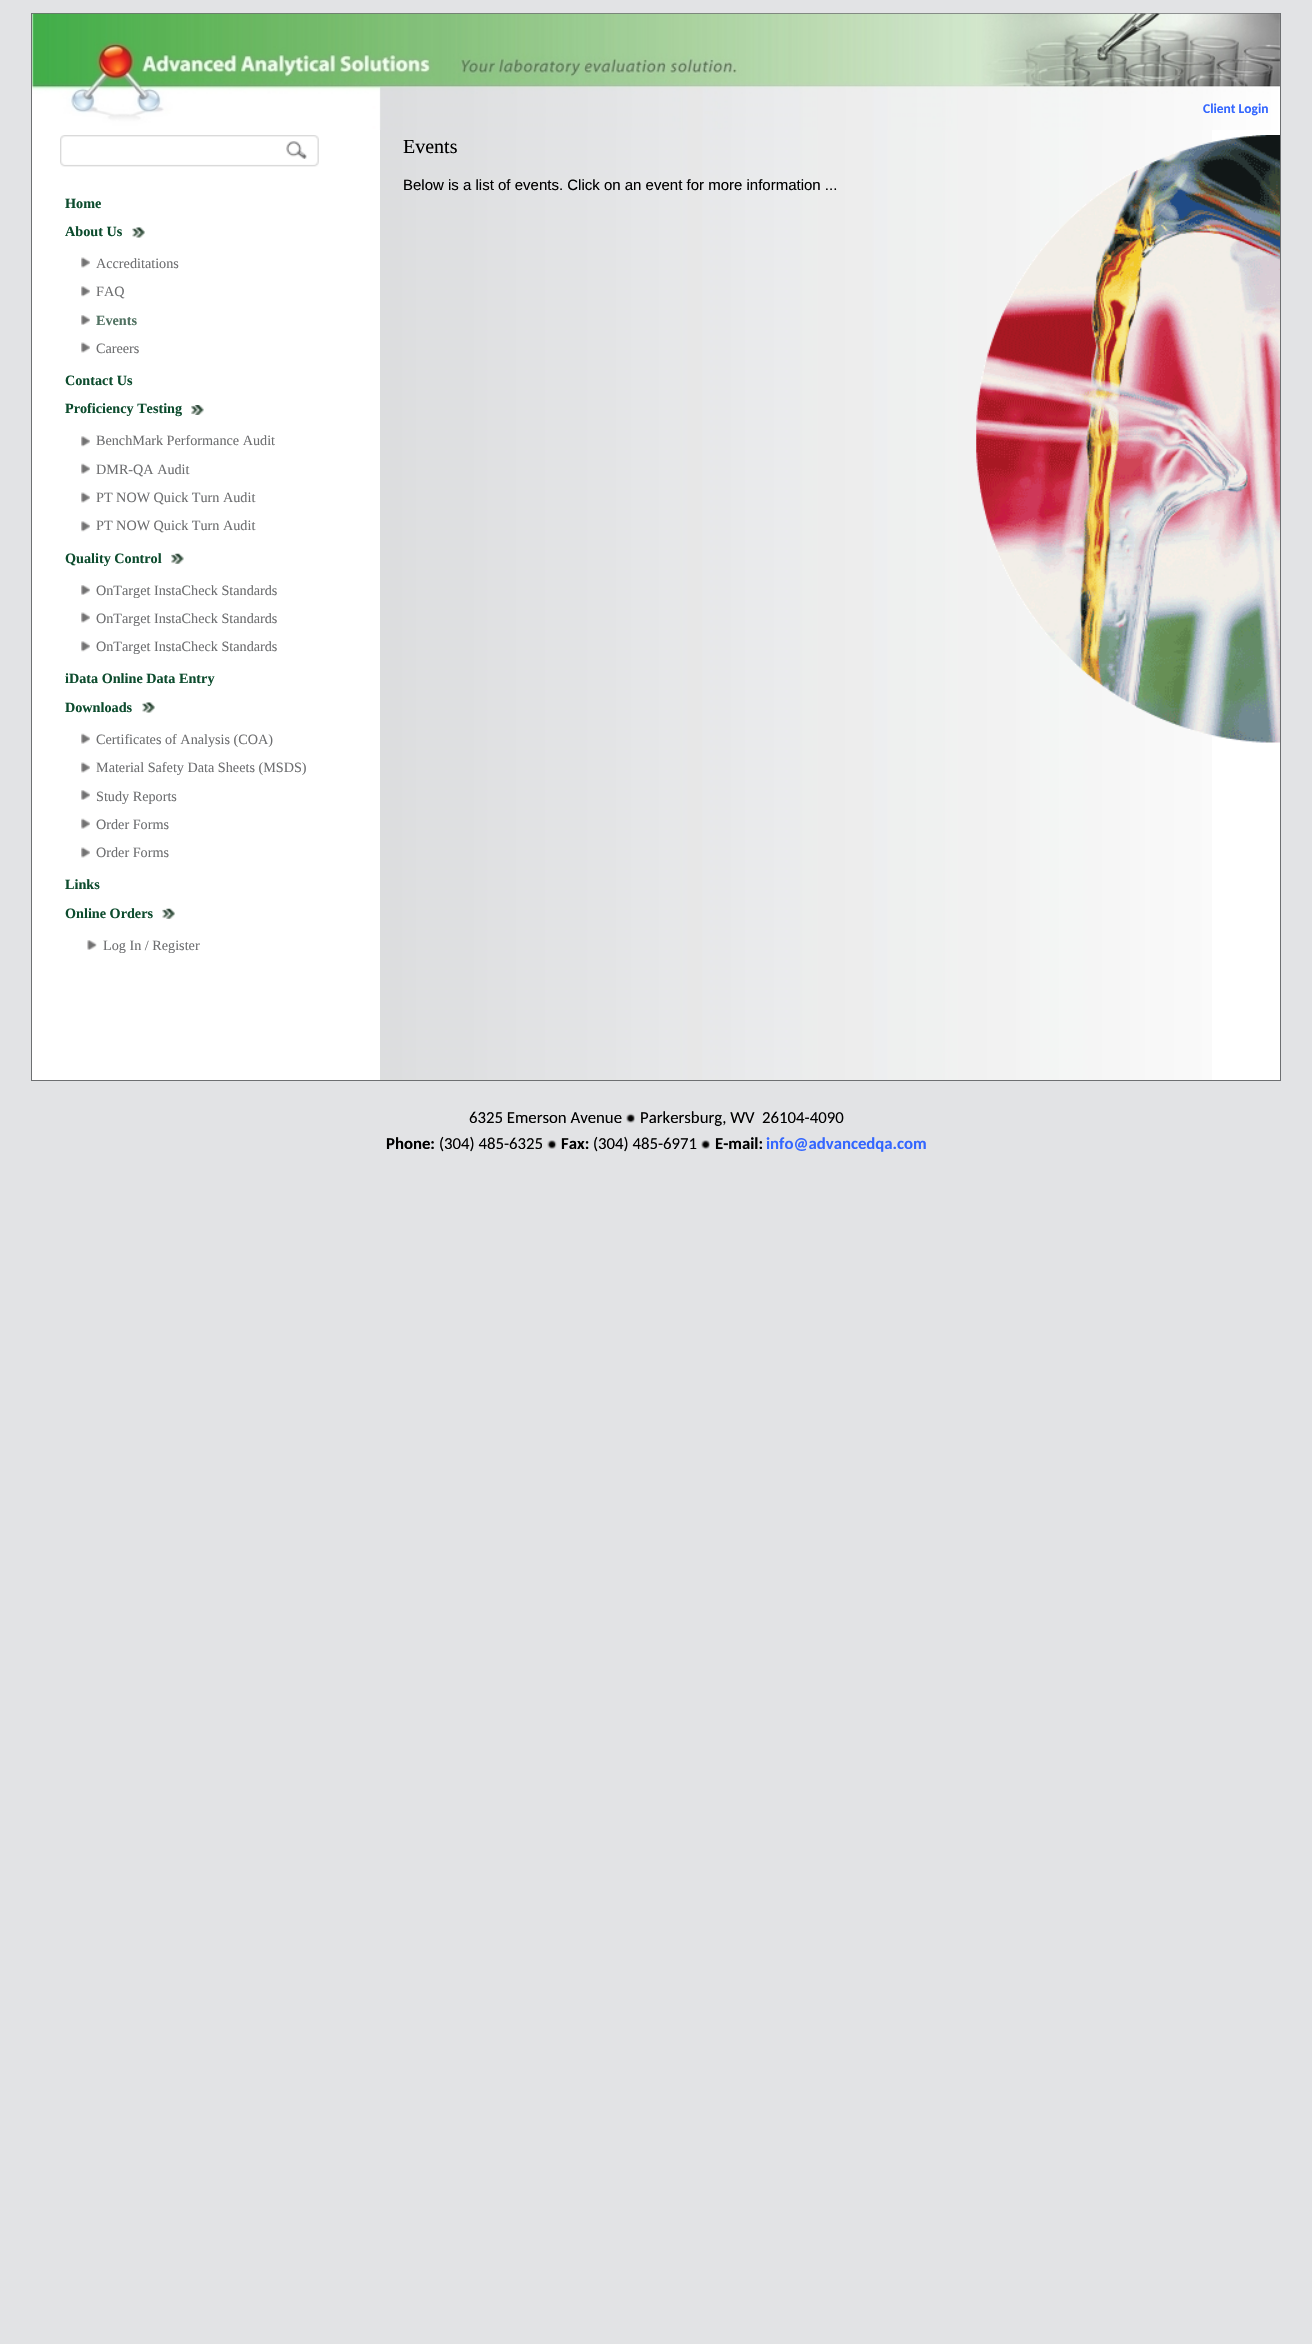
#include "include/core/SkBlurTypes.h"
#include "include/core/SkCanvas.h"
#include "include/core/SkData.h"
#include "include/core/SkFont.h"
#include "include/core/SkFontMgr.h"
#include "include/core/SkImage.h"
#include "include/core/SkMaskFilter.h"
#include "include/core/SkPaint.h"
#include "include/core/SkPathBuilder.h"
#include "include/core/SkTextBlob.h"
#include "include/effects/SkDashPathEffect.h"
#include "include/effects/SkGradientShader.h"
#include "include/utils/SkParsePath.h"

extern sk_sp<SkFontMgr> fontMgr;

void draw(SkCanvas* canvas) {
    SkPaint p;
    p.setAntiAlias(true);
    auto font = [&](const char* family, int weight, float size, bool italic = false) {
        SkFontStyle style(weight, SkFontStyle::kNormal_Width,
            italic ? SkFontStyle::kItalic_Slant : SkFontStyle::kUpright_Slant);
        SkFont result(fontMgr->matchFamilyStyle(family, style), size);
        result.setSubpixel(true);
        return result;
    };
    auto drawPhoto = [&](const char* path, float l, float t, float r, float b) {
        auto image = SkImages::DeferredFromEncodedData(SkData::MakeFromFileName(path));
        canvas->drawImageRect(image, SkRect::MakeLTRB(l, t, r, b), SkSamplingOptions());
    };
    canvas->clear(0xFFE2E3E5);
    p.setColor(0xFFFFFFFF);
    canvas->drawRect(SkRect::MakeLTRB(31.5f, 13.5f, 1280.5f, 1080.5f), p);
    p.setStyle(SkPaint::kStroke_Style);
    p.setStrokeWidth(1);
    p.setColor(0xFF6D6F71);
    canvas->drawRect(SkRect::MakeLTRB(31.5f, 13.5f, 1280.5f, 1080.5f), p);
    drawPhoto("media/1.png", 32, 13, 1280, 130);
    auto font1 = font("Carlito", 700, 13.5f);
    p.setStyle(SkPaint::kFill_Style);
    p.setColor(0xFF3366FF);
    canvas->drawString("Client Login", 1203, 113, font1, p);
    drawPhoto("media/2.png", 380, 130, 1212, 1080);
    auto font2 = font("Liberation Serif", 400, 20);
    p.setColor(0xFF000000);
    canvas->drawString("Events", 403, 153, font2, p);
    drawPhoto("media/3.png", 976, 135, 1280, 743);
    auto font3 = font("Liberation Sans", 400, 15);
    canvas->drawString("Below is a list of events. Click on an event for more information ...", 403, 190, font3, p);
    drawPhoto("media/4.png", 60, 135, 319, 167);
    drawPhoto("media/5.png", 286, 141, 307, 159);
    auto font4 = font("Liberation Serif", 700, 14.2f);
    p.setColor(0xFF0D4C2E);
    canvas->drawString("Home", 65, 208, font4, p);
    canvas->drawString("About Us", 65, 236, font4, p);
    drawPhoto("media/6.png", 132, 227, 145, 238);
    drawPhoto("media/7.png", 81, 257, 90, 268);
    auto font5 = font("Liberation Serif", 400, 14.2f);
    p.setColor(0xFF6E6F71);
    canvas->drawString("Accreditations", 96, 268, font5, p);
    drawPhoto("media/8.png", 81, 286, 90, 297);
    canvas->drawString("FAQ", 96, 296, font5, p);
    drawPhoto("media/9.png", 81, 315, 90, 325);
    p.setColor(0xFF517262);
    canvas->drawString("Events", 96, 325, font4, p);
    drawPhoto("media/7.png", 81, 342, 90, 353);
    p.setColor(0xFF6E6F71);
    canvas->drawString("Careers", 96, 353, font5, p);
    p.setColor(0xFF0D4C2E);
    canvas->drawString("Contact Us", 65, 385, font4, p);
    canvas->drawString("Proficiency Testing", 65, 413, font4, p);
    drawPhoto("media/10.png", 191, 405, 204, 415);
    drawPhoto("media/8.png", 81, 436, 90, 447);
    p.setColor(0xFF6E6F71);
    canvas->drawString("BenchMark Performance Audit", 96, 445, font5, p);
    drawPhoto("media/11.png", 81, 463, 90, 474);
    canvas->drawString("DMR-QA Audit", 96, 474, font5, p);
    drawPhoto("media/7.png", 81, 492, 90, 503);
    canvas->drawString("PT NOW Quick Turn Audit", 96, 502, font5, p);
    drawPhoto("media/8.png", 81, 521, 90, 532);
    canvas->drawString("PT NOW Quick Turn Audit", 96, 530, font5, p);
    p.setColor(0xFF0D4C2E);
    canvas->drawString("Quality Control", 65, 563, font4, p);
    drawPhoto("media/12.png", 171, 553, 184, 564);
    drawPhoto("media/13.png", 81, 585, 90, 595);
    p.setColor(0xFF6E6F71);
    canvas->drawString("OnTarget InstaCheck Standards", 96, 595, font5, p);
    drawPhoto("media/7.png", 81, 612, 90, 623);
    canvas->drawString("OnTarget InstaCheck Standards", 96, 623, font5, p);
    drawPhoto("media/8.png", 81, 641, 90, 652);
    canvas->drawString("OnTarget InstaCheck Standards", 96, 651, font5, p);
    p.setColor(0xFF0D4C2E);
    canvas->drawString("iData Online Data Entry", 65, 683, font4, p);
    canvas->drawString("Downloads", 65, 712, font4, p);
    drawPhoto("media/6.png", 142, 702, 155, 713);
    drawPhoto("media/11.png", 81, 733, 90, 744);
    p.setColor(0xFF6E6F71);
    canvas->drawString("Certificates of Analysis (COA)", 96, 744, font5, p);
    drawPhoto("media/7.png", 81, 762, 90, 773);
    canvas->drawString("Material Safety Data Sheets (MSDS)", 96, 772, font5, p);
    drawPhoto("media/9.png", 81, 790, 90, 800);
    canvas->drawString("Study Reports", 96, 801, font5, p);
    drawPhoto("media/11.png", 81, 818, 90, 829);
    canvas->drawString("Order Forms", 96, 829, font5, p);
    drawPhoto("media/7.png", 81, 847, 90, 858);
    canvas->drawString("Order Forms", 96, 857, font5, p);
    p.setColor(0xFF0D4C2E);
    canvas->drawString("Links", 65, 889, font4, p);
    canvas->drawString("Online Orders", 65, 918, font4, p);
    drawPhoto("media/14.png", 162, 908, 175, 919);
    drawPhoto("media/15.png", 87, 940, 97, 950);
    p.setColor(0xFF6E6F71);
    canvas->drawString("Log In / Register", 103, 950, font5, p);
    auto font6 = font("Carlito", 400, 16.75f);
    p.setColor(0xFF000000);
    canvas->drawString("6325 Emerson Avenue", 469, 1123, font6, p);
    drawPhoto("media/16.png", 626, 1113, 635, 1123);
    canvas->drawString("Parkersburg, WV  26104-4090", 640, 1123, font6, p);
    auto font7 = font("Carlito", 700, 16.75f);
    canvas->drawString("Phone:", 386, 1149, font7, p);
    canvas->drawString("(304) 485-6325", 439, 1149, font6, p);
    drawPhoto("media/17.png", 547, 1140, 557, 1149);
    canvas->drawString("Fax:", 561, 1149, font7, p);
    canvas->drawString("(304) 485-6971", 593, 1149, font6, p);
    drawPhoto("media/18.png", 701, 1140, 710, 1149);
    canvas->drawString("E-mail:", 715, 1149, font7, p);
    p.setColor(0xFF3366FF);
    canvas->drawString("info@advancedqa.com", 766, 1149, font7, p);
}
